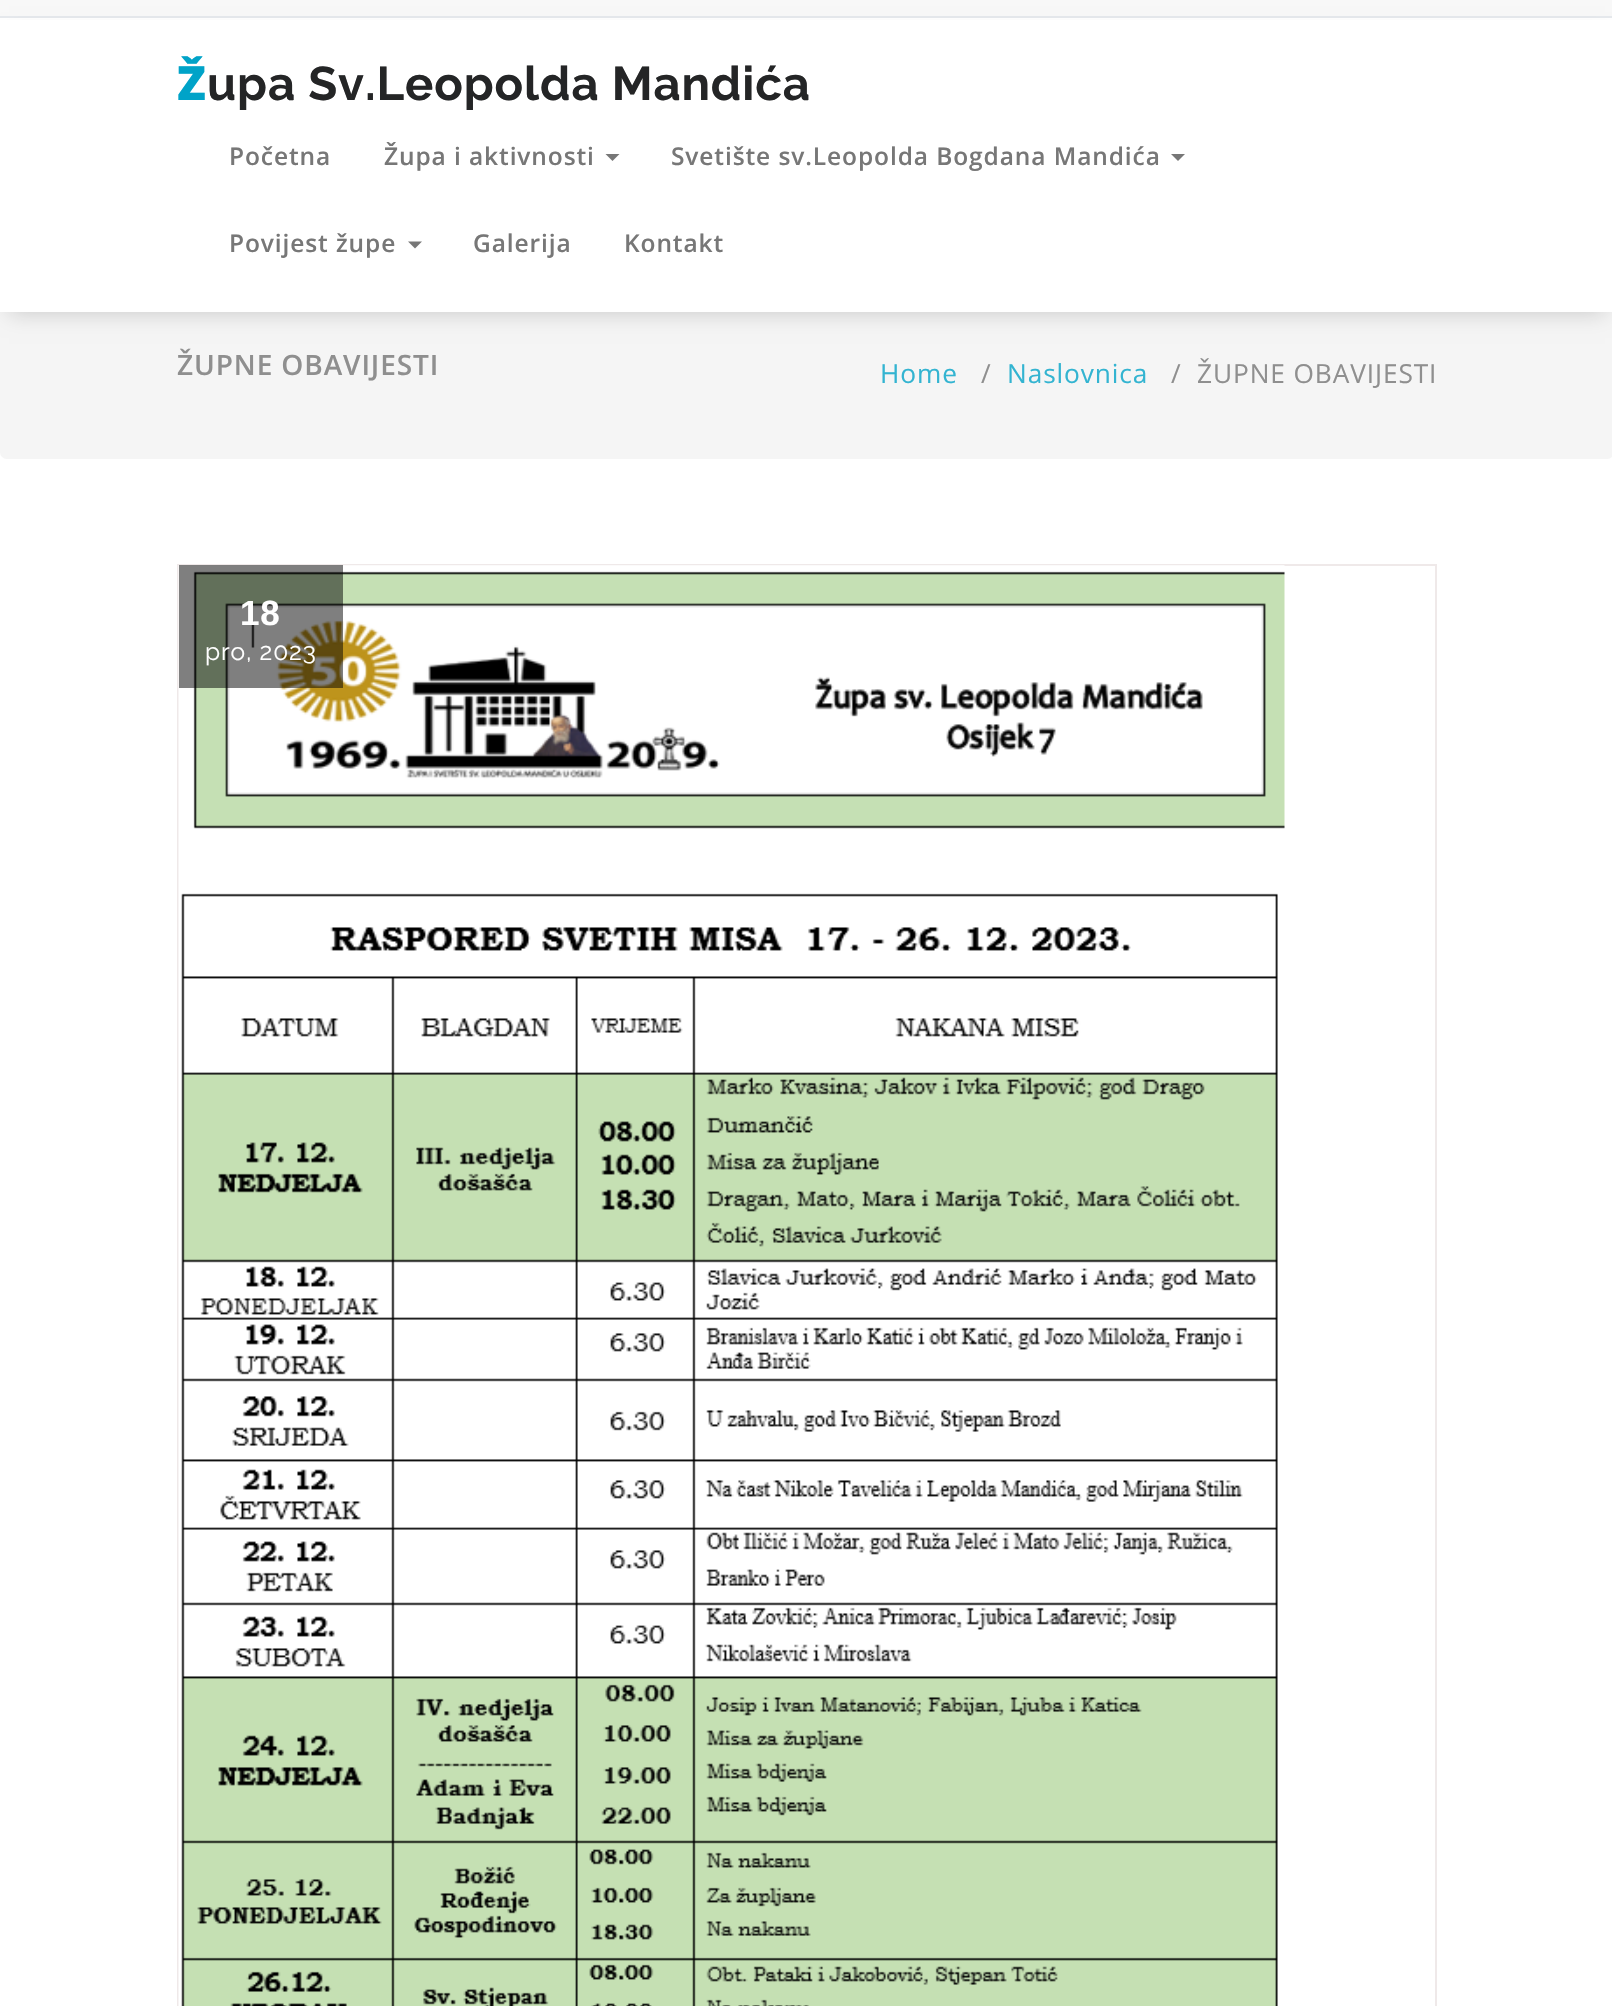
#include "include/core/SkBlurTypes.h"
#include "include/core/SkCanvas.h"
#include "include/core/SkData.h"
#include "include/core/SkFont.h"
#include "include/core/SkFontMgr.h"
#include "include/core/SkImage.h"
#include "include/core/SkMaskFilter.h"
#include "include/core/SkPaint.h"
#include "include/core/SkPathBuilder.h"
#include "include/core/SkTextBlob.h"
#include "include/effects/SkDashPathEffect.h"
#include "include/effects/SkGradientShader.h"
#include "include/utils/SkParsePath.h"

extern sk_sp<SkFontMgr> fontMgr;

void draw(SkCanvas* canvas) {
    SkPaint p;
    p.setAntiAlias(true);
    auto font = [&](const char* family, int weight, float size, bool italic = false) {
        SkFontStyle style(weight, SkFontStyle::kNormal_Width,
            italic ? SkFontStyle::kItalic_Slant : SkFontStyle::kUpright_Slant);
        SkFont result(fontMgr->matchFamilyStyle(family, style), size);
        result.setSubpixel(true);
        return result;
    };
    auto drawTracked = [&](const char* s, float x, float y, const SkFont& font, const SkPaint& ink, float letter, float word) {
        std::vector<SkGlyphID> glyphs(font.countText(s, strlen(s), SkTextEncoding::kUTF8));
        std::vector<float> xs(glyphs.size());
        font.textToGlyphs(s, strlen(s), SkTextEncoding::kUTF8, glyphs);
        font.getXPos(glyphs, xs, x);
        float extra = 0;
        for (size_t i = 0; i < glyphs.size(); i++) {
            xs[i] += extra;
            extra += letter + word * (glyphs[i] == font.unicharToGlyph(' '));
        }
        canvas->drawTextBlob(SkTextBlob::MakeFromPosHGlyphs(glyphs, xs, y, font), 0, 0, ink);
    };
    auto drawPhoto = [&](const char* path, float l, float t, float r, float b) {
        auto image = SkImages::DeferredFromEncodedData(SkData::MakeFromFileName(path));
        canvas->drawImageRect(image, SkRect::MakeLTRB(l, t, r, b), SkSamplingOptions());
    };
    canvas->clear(0xFFFFFFFF);
    p.setColor(0xFFF8F8F8);
    canvas->drawRect(SkRect::MakeLTRB(0, 0, 1612, 16), p);
    p.setColor(0xFFE6E9ED);
    canvas->drawRect(SkRect::MakeLTRB(0, 16, 1612, 18), p);
    p.setColor(0xFFF5F5F5);
    canvas->drawRoundRect(SkRect::MakeLTRB(0, 287, 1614, 459), 7, 7, p);
    p.setColor(0x2E000000);
    p.setMaskFilter(SkMaskFilter::MakeBlur(kNormal_SkBlurStyle, 10.5f));
    canvas->drawRect(SkRect::MakeLTRB(9, 37, 1605, 313), p);
    p.setMaskFilter(nullptr);
    p.setColor(0xFFFFFFFF);
    canvas->drawRect(SkRect::MakeLTRB(0, 20, 1612, 312), p);
    auto font1 = font("Noto Sans", 900, 47.25f);
    p.setColor(0xFF00A3C8);
    drawTracked("Ž", 177, 100, font1, p, 0.9f, 0);
    auto font2 = font("Raleway", 700, 47.25f);
    p.setColor(0xFF242526);
    drawTracked("upa Sv.Leopolda Mandića", 207, 100, font2, p, 0.9f, 0);
    auto font3 = font("Open Sans", 600, 24.5f);
    p.setColor(0xFF777777);
    drawTracked("Početna", 229, 165, font3, p, 0.9f, 0);
    drawTracked("Župa i aktivnosti", 384, 165, font3, p, 0.9f, 0);
    canvas->drawPath(SkPathBuilder().moveTo(605.5f, 154).lineTo(619.5f, 154).lineTo(612.5f, 161).close().detach(), p);
    drawTracked("Svetište sv.Leopolda Bogdana Mandića", 671, 165, font3, p, 0.9f, 0);
    canvas->drawPath(SkPathBuilder().moveTo(1171, 154).lineTo(1185, 154).lineTo(1178, 161).close().detach(), p);
    drawTracked("Povijest župe", 229, 252, font3, p, 0.9f, 0);
    canvas->drawPath(SkPathBuilder().moveTo(408, 241.5f).lineTo(422, 241.5f).lineTo(415, 248.5f).close().detach(), p);
    drawTracked("Galerija", 473, 252, font3, p, 0.9f, 0);
    drawTracked("Kontakt", 624, 252, font3, p, 0.9f, 0);
    auto font4 = font("Open Sans", 600, 28);
    p.setColor(0xFF8F8F8F);
    drawTracked("ŽUPNE OBAVIJESTI", 177, 375, font4, p, 0.9f, 0);
    auto font5 = font("Open Sans", 400, 26.25f);
    p.setColor(0xFF33B4D1);
    drawTracked("Home", 880, 383, font5, p, 0.9f, 0);
    p.setColor(0xFF8F8F8F);
    drawTracked("/", 981, 383, font5, p, 0.9f, 0);
    p.setColor(0xFF33B4D1);
    drawTracked("Naslovnica", 1007, 383, font5, p, 0.9f, 0);
    p.setColor(0xFF8F8F8F);
    drawTracked("/", 1171, 383, font5, p, 0.9f, 0);
    drawTracked("ŽUPNE OBAVIJESTI", 1197, 383, font5, p, 0.9f, 0);
    p.setStyle(SkPaint::kStroke_Style);
    p.setStrokeWidth(2);
    p.setColor(0xFFEFE9E9);
    canvas->drawRect(SkRect::MakeLTRB(178, 565, 1436, 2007), p);
    drawPhoto("media/1.png", 178, 565, 1285, 2006);
    p.setStyle(SkPaint::kFill_Style);
    p.setColor(0x80000000);
    canvas->drawRect(SkRect::MakeLTRB(179, 565, 343, 688), p);
    auto font6 = font("Liberation Sans", 700, 35);
    p.setColor(0xFFFFFFFF);
    drawTracked("18", 240, 625, font6, p, 0.9f, 0);
    auto font7 = font("Raleway", 400, 24.5f);
    drawTracked("pro, 2023", 205, 660, font7, p, 0.9f, 0);
}
